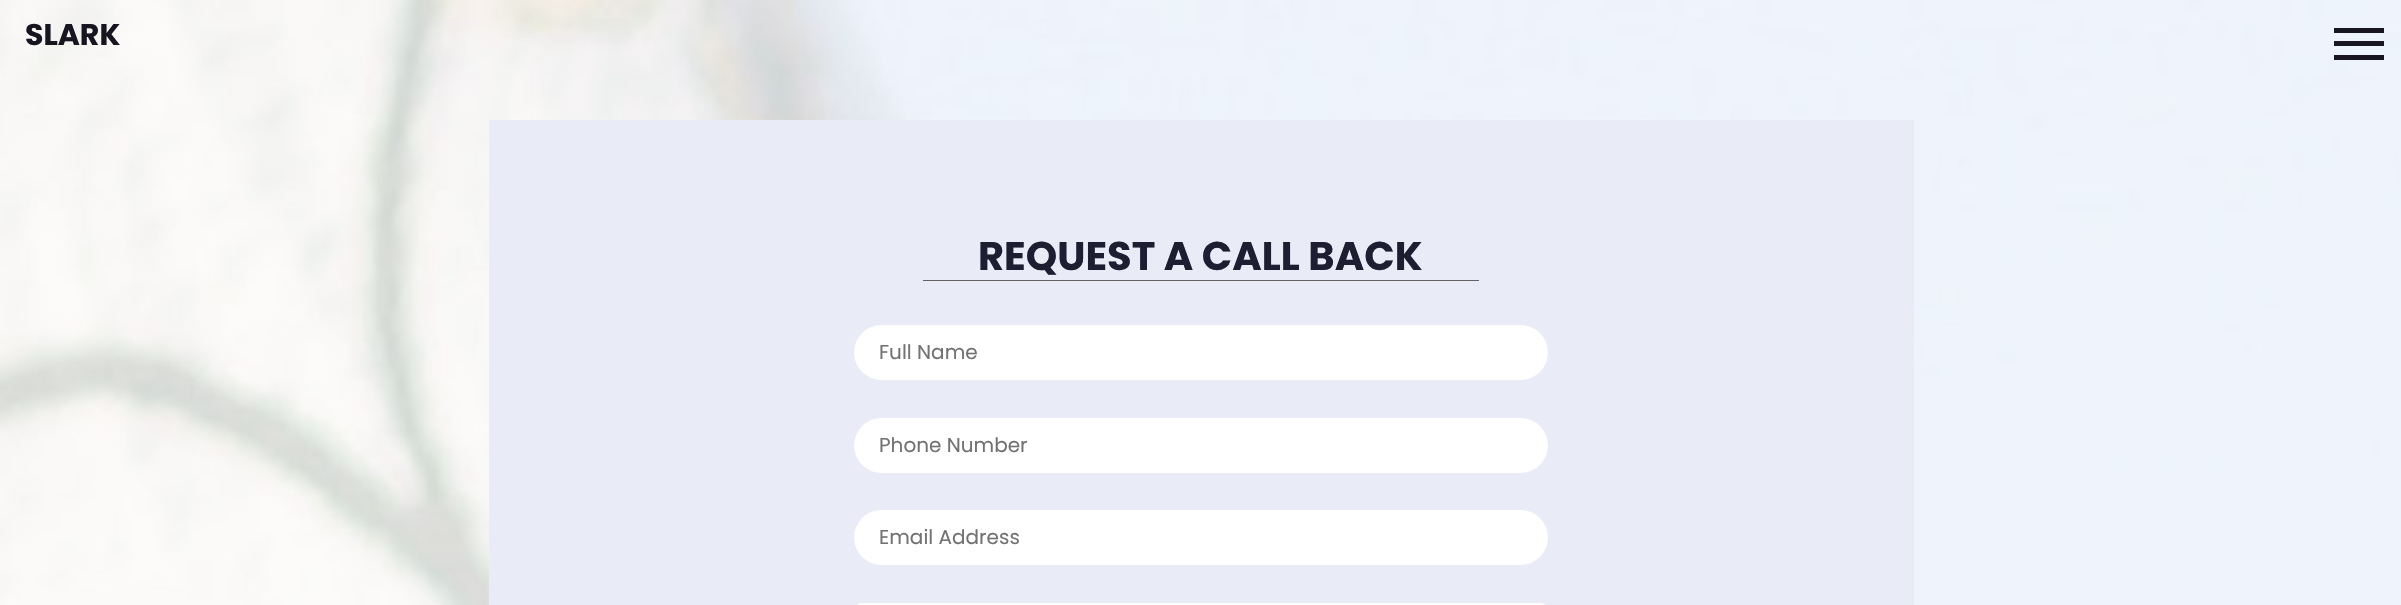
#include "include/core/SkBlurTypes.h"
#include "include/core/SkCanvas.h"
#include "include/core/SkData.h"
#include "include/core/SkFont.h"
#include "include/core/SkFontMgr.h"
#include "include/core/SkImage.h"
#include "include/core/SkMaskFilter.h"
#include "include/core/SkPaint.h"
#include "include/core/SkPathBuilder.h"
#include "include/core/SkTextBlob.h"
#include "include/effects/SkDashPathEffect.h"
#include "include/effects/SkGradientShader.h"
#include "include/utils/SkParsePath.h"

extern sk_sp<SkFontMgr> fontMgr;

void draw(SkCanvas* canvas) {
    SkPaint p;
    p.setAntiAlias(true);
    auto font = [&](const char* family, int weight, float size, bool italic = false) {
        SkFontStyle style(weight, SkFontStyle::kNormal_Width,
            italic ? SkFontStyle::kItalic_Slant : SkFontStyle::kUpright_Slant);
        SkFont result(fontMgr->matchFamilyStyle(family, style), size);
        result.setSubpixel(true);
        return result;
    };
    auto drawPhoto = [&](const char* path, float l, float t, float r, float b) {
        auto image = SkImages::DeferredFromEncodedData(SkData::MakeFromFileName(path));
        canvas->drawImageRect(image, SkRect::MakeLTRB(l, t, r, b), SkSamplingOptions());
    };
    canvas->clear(0xFFFFFFFF);
    drawPhoto("media/1.png", 0, 0, 2401, 605);
    auto font1 = font("Poppins", 700, 30);
    p.setColor(0xFF171620);
    canvas->drawString("SLARK", 25, 45, font1, p);
    {
        const struct { float l, t, r, b; SkColor color; } items[] = {
            {2334, 28, 2384, 33, 0xFF181620},
            {2334, 41, 2384, 46, 0xFF181620},
            {2334, 55, 2384, 60, 0xFF181620},
            {489, 120, 1914, 605, 0xFFE9EBF6},
            {923, 280, 1479, 281, 0xFF636363},
        };
        for (auto [l, t, r, b, color] : items) {
            p.setColor(color);
            canvas->drawRect(SkRect::MakeLTRB(l, t, r, b), p);
        }
    }
    auto font2 = font("Poppins", 700, 40);
    p.setColor(0xFF1D1E31);
    canvas->drawString("REQUEST A CALL BACK", 978, 270, font2, p);
    p.setColor(0xFFFFFFFF);
    canvas->drawRoundRect(SkRect::MakeLTRB(854, 325, 1548, 380), 27.5f, 27.5f, p);
    auto font3 = font("Poppins", 400, 20);
    p.setColor(0xFF737272);
    canvas->drawString("Full Name", 879, 359, font3, p);
    p.setColor(0xFFFFFFFF);
    canvas->drawRoundRect(SkRect::MakeLTRB(854, 418, 1548, 473), 27.5f, 27.5f, p);
    p.setColor(0xFF737272);
    canvas->drawString("Phone Number", 879, 452, font3, p);
    p.setColor(0xFFFFFFFF);
    canvas->drawRoundRect(SkRect::MakeLTRB(854, 510, 1548, 565), 27.5f, 27.5f, p);
    p.setColor(0xFF737272);
    canvas->drawString("Email Address", 879, 544, font3, p);
    p.setColor(0xFFFFFFFF);
    canvas->drawRoundRect(SkRect::MakeLTRB(854, 603, 1548, 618), 13, 13, p);
}
